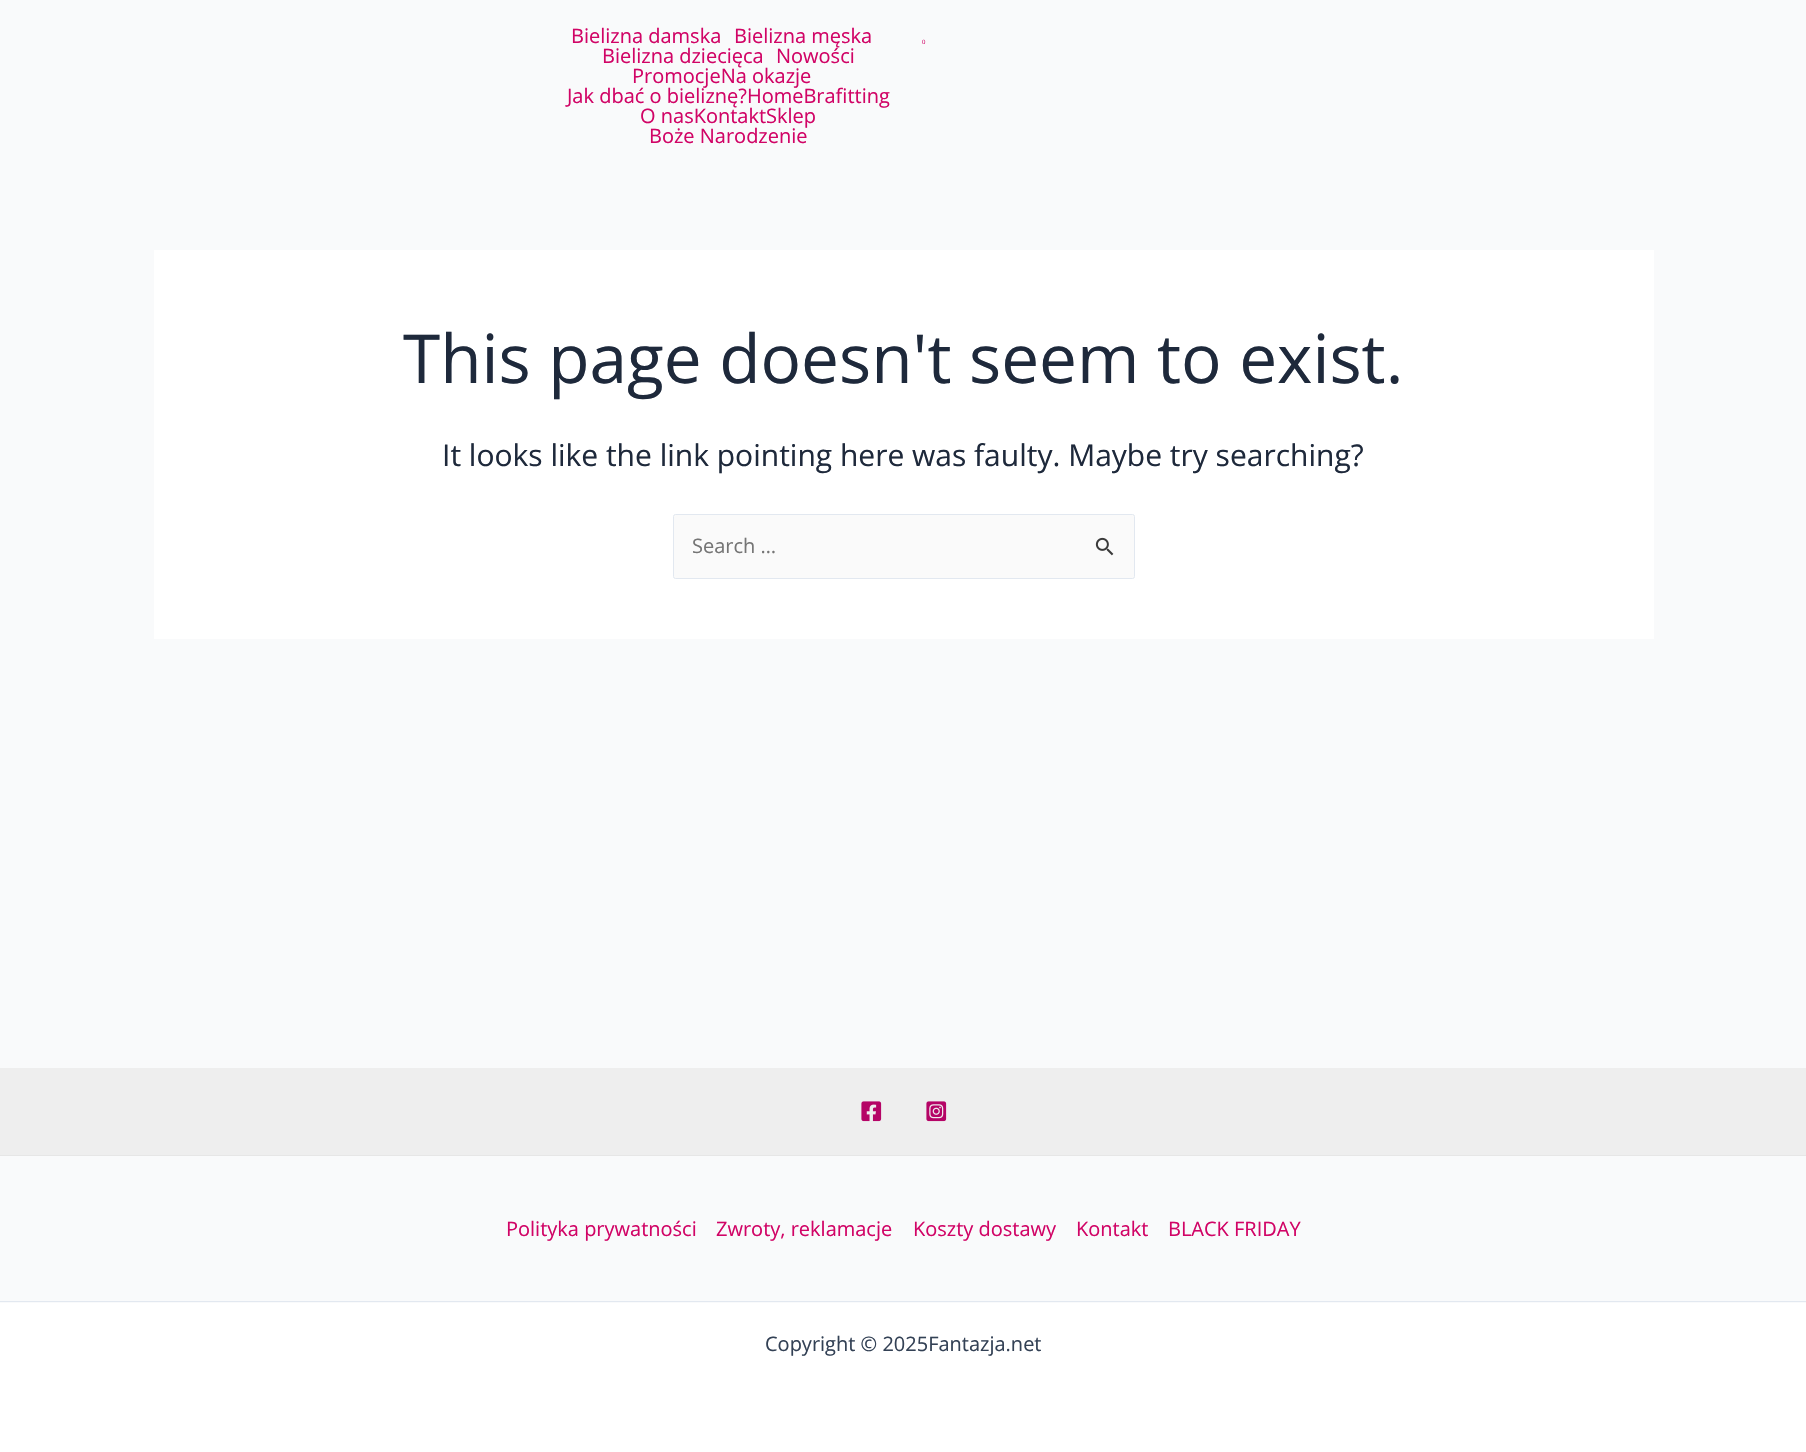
#include "include/core/SkBlurTypes.h"
#include "include/core/SkCanvas.h"
#include "include/core/SkData.h"
#include "include/core/SkFont.h"
#include "include/core/SkFontMgr.h"
#include "include/core/SkImage.h"
#include "include/core/SkMaskFilter.h"
#include "include/core/SkPaint.h"
#include "include/core/SkPathBuilder.h"
#include "include/core/SkTextBlob.h"
#include "include/effects/SkDashPathEffect.h"
#include "include/effects/SkGradientShader.h"
#include "include/utils/SkParsePath.h"

extern sk_sp<SkFontMgr> fontMgr;

void draw(SkCanvas* canvas) {
    SkPaint p;
    p.setAntiAlias(true);
    auto font = [&](const char* family, int weight, float size, bool italic = false) {
        SkFontStyle style(weight, SkFontStyle::kNormal_Width,
            italic ? SkFontStyle::kItalic_Slant : SkFontStyle::kUpright_Slant);
        SkFont result(fontMgr->matchFamilyStyle(family, style), size);
        result.setSubpixel(true);
        return result;
    };
    auto drawPhoto = [&](const char* path, float l, float t, float r, float b) {
        auto image = SkImages::DeferredFromEncodedData(SkData::MakeFromFileName(path));
        canvas->drawImageRect(image, SkRect::MakeLTRB(l, t, r, b), SkSamplingOptions());
    };
    canvas->clear(0xFFF9FAFB);
    auto font1 = font("Open Sans", 400, 20);
    p.setColor(0xFFD10466);
    {
        const struct { const char* s; float x, y; } items[] = {
            {"Bielizna damska", 571, 43},
            {"Bielizna męska", 734, 43},
            {"Bielizna dziecięca", 602, 63},
            {"Nowości", 776, 63},
            {"PromocjeNa okazje", 632, 83},
            {"Jak dbać o bieliznę?HomeBrafitting", 567, 103},
            {"O nasKontaktSklep", 640, 123},
            {"Boże Narodzenie", 649, 143},
        };
        for (auto [s, x, y] : items) {
            canvas->drawString(s, x, y, font1, p);
        }
    }
    auto font2 = font("Open Sans", 400, 6);
    canvas->drawString("0", 922, 44, font2, p);
    p.setColor(0xFFFFFFFF);
    canvas->drawRect(SkRect::MakeLTRB(154, 250, 1654, 639), p);
    auto font3 = font("Open Sans", 400, 67.5f);
    p.setColor(0xFF1E293B);
    canvas->drawString("This page doesn't seem to exist.", 403, 383, font3, p);
    auto font4 = font("Open Sans", 400, 30);
    canvas->drawString("It looks like the link pointing here was faulty. Maybe try searching?", 442, 466, font4, p);
    p.setColor(0xFFFAFAFA);
    canvas->drawRoundRect(SkRect::MakeLTRB(673.5f, 514.5f, 1134.5f, 578.5f), 2, 2, p);
    p.setStyle(SkPaint::kStroke_Style);
    p.setStrokeWidth(1);
    p.setColor(0xFFE2E8F0);
    canvas->drawRoundRect(SkRect::MakeLTRB(673.5f, 514.5f, 1134.5f, 578.5f), 2, 2, p);
    p.setStyle(SkPaint::kFill_Style);
    p.setColor(0xFF757575);
    canvas->drawString("Search …", 692, 553, font1, p);
    drawPhoto("media/1.png", 1095, 537, 1114, 556);
    p.setColor(0xFFEEEEEE);
    canvas->drawRect(SkRect::MakeLTRB(0, 1068, 1806, 1155), p);
    drawPhoto("media/2.png", 861, 1101, 882, 1122);
    drawPhoto("media/3.png", 926, 1101, 947, 1122);
    p.setColor(0xFFE6E6E6);
    canvas->drawRect(SkRect::MakeLTRB(0, 1155, 1806, 1156), p);
    p.setColor(0xFFD10466);
    {
        const struct { const char* s; float x, y; } items[] = {
            {"Polityka prywatności", 506, 1236},
            {"Zwroty, reklamacje", 716, 1236},
            {"Koszty dostawy", 913, 1236},
            {"Kontakt", 1076, 1236},
            {"BLACK FRIDAY", 1168, 1236},
        };
        for (auto [s, x, y] : items) {
            canvas->drawString(s, x, y, font1, p);
        }
    }
    p.setColor(0xFFFFFFFF);
    canvas->drawRect(SkRect::MakeLTRB(0, 1303, 1806, 1452), p);
    p.setColor(0xFFE2E8F0);
    canvas->drawRect(SkRect::MakeLTRB(0, 1301, 1806, 1302), p);
    p.setColor(0xFF334155);
    canvas->drawString("Copyright © 2025Fantazja.net", 765, 1351, font1, p);
}
